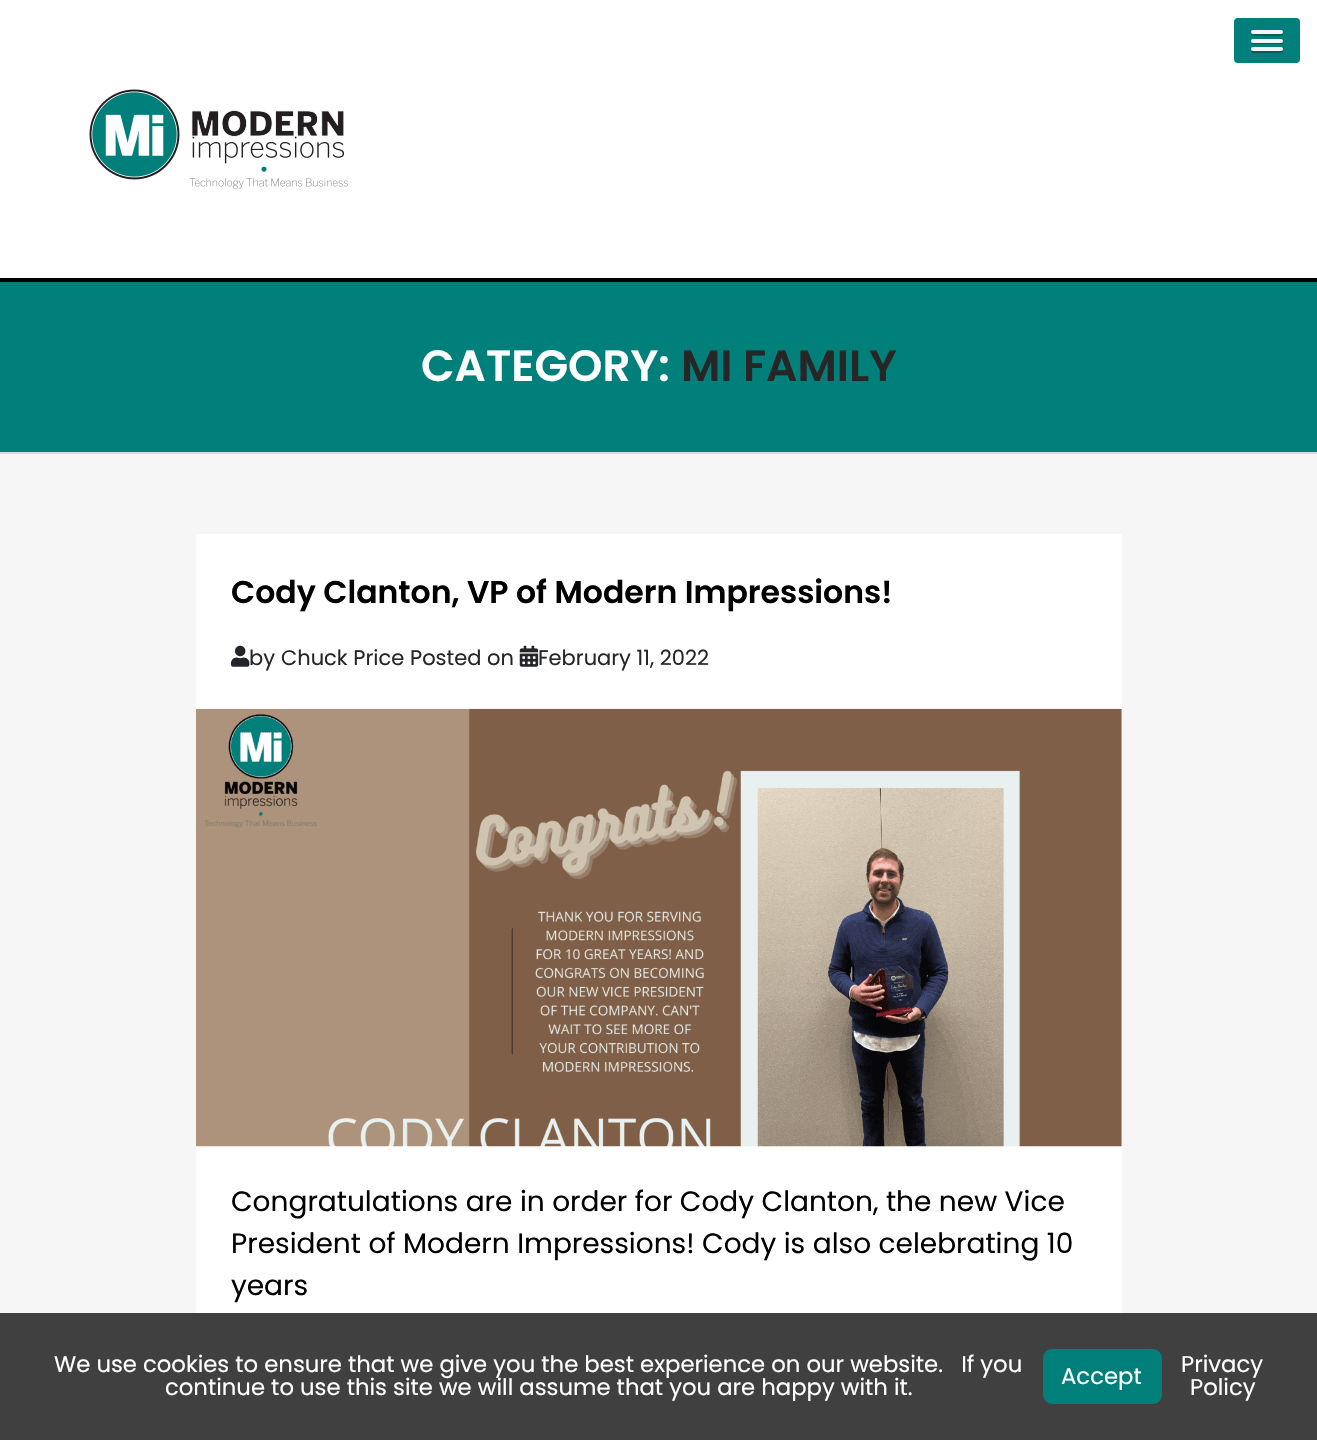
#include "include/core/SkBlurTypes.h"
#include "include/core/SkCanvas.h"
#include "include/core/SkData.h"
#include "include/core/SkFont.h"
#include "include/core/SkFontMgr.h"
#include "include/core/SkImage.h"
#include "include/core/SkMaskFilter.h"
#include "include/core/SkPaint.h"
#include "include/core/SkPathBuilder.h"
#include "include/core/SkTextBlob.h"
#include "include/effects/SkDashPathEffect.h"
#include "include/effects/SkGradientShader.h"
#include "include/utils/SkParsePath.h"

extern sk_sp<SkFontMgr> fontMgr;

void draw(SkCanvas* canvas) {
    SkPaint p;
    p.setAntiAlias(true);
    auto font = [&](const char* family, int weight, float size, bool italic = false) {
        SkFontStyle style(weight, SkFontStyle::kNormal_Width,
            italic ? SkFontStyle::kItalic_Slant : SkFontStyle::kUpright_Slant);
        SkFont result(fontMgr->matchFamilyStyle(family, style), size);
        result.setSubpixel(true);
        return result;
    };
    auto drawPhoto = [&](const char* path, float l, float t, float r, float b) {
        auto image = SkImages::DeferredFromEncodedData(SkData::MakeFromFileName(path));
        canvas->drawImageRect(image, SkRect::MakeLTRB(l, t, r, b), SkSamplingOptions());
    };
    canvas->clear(0xFFFFFFFF);
    p.setColor(0xFF007F7B);
    canvas->drawRoundRect(SkRect::MakeLTRB(1234, 18, 1300, 63), 4, 4, p);
    p.setColor(0xFF005F5C);
    canvas->drawPath(SkPathBuilder().moveTo(1251.5f, 32.5f).cubicTo(1250.5f, 33.5f, 1251, 35, 1252, 35.5f).cubicTo(1253, 36.5f, 1277.5f, 36, 1281, 36).cubicTo(1283, 36, 1283.5f, 34, 1282.5f, 32.5f).lineTo(1281, 33).lineTo(1253, 33).close().detach(), p);
    p.setColor(0xFFF5F5F5);
    canvas->drawRoundRect(SkRect::MakeLTRB(1251, 30, 1283, 34), 2, 2, p);
    p.setColor(0xFF005F5C);
    canvas->drawPath(SkPathBuilder().moveTo(1251.5f, 41).lineTo(1251, 42.5f).cubicTo(1251.5f, 45, 1256.5f, 44, 1257.5f, 44).lineTo(1276.5f, 44).cubicTo(1277.5f, 44, 1282.5f, 45, 1283, 42.5f).lineTo(1282.5f, 41).cubicTo(1282.5f, 41.5f, 1282, 42, 1281, 42).lineTo(1253, 42).cubicTo(1252, 42, 1251.5f, 41.5f, 1251.5f, 41).close().detach(), p);
    p.setColor(0xFFF5F5F5);
    canvas->drawRoundRect(SkRect::MakeLTRB(1251, 39, 1283, 43), 2, 2, p);
    p.setColor(0xFF005F5C);
    canvas->drawPath(SkPathBuilder().moveTo(1251.5f, 50).lineTo(1251, 51.5f).cubicTo(1251.5f, 54, 1256.5f, 53, 1257.5f, 53).lineTo(1276.5f, 53).cubicTo(1277.5f, 53, 1282.5f, 54, 1283, 51.5f).lineTo(1282.5f, 50).cubicTo(1282.5f, 50.5f, 1281.5f, 51, 1281, 51).lineTo(1253, 51).cubicTo(1252.5f, 51, 1251.5f, 50.5f, 1251.5f, 50).close().detach(), p);
    p.setColor(0xFFF5F5F5);
    canvas->drawRoundRect(SkRect::MakeLTRB(1251, 47, 1283, 51), 2, 2, p);
    p.setColor(0xFF000000);
    canvas->drawRect(SkRect::MakeLTRB(0, 278, 1317, 282), p);
    drawPhoto("media/1.png", 89, 89, 348, 189);
    p.setColor(0xFF007F7B);
    canvas->drawRect(SkRect::MakeLTRB(0, 282, 1317, 452), p);
    auto font1 = font("Poppins", 600, 43.75f);
    p.setColor(0xFFFFFFFF);
    canvas->drawString("CATEGORY:", 421, 381, font1, p);
    p.setColor(0xFF262626);
    canvas->drawString("MI FAMILY", 681, 381, font1, p);
    {
        const struct { float l, t, r, b; SkColor color; } items[] = {
            {0, 454, 1317, 1313, 0xFFF6F6F6},
            {0, 452, 1317, 454, 0xFFDDDDDD},
            {196, 534, 1122, 1313, 0xFFFFFFFF},
        };
        for (auto [l, t, r, b, color] : items) {
            p.setColor(color);
            canvas->drawRect(SkRect::MakeLTRB(l, t, r, b), p);
        }
    }
    auto font2 = font("Poppins", 600, 31.5f);
    p.setColor(0xFF000000);
    canvas->drawString("Cody Clanton, VP of Modern Impressions!", 231, 603, font2, p);
    drawPhoto("media/2.png", 231, 645, 250, 667);
    auto font3 = font("Poppins", 400, 21);
    p.setColor(0xFF262626);
    {
        const struct { const char* s; float x, y; } items[] = {
            {"by", 249, 665},
            {"Chuck Price", 281, 665},
            {"Posted on", 410, 665},
        };
        for (auto [s, x, y] : items) {
            canvas->drawString(s, x, y, font3, p);
        }
    }
    drawPhoto("media/3.png", 519, 645, 539, 667);
    canvas->drawString("February 11, 2022", 538, 665, font3, p);
    drawPhoto("media/4.png", 196, 708, 1122, 1147);
    auto font4 = font("Poppins", 400, 28);
    p.setColor(0xFF000000);
    {
        const struct { const char* s; float x, y; } items[] = {
            {"Congratulations are in order for Cody Clanton, the new Vice", 231, 1211},
            {"President of Modern Impressions! Cody is also celebrating 10", 231, 1253},
            {"years", 231, 1295},
        };
        for (auto [s, x, y] : items) {
            canvas->drawString(s, x, y, font4, p);
        }
    }
    p.setColor(0xFF404040);
    canvas->drawRect(SkRect::MakeLTRB(0, 1313, 1317, 1440), p);
    auto font5 = font("Poppins", 400, 22.75f);
    p.setColor(0xFFFFFFFF);
    canvas->drawString("We use cookies to ensure that we give you the best experience on our website.   If you", 54, 1372, font5, p);
    canvas->drawString("continue to use this site we will assume that you are happy with it.", 165, 1395, font5, p);
    p.setColor(0xFF007F7B);
    canvas->drawRoundRect(SkRect::MakeLTRB(1044, 1350, 1161, 1403), 8, 8, p);
    p.setStyle(SkPaint::kStroke_Style);
    p.setStrokeWidth(2);
    canvas->drawRoundRect(SkRect::MakeLTRB(1044, 1350, 1161, 1403), 8, 8, p);
    p.setStyle(SkPaint::kFill_Style);
    p.setColor(0xFFFFFFFF);
    {
        const struct { const char* s; float x, y; } items[] = {
            {"Accept", 1061, 1384},
            {"Privacy", 1181, 1372},
            {"Policy", 1190, 1395},
        };
        for (auto [s, x, y] : items) {
            canvas->drawString(s, x, y, font5, p);
        }
    }
}
